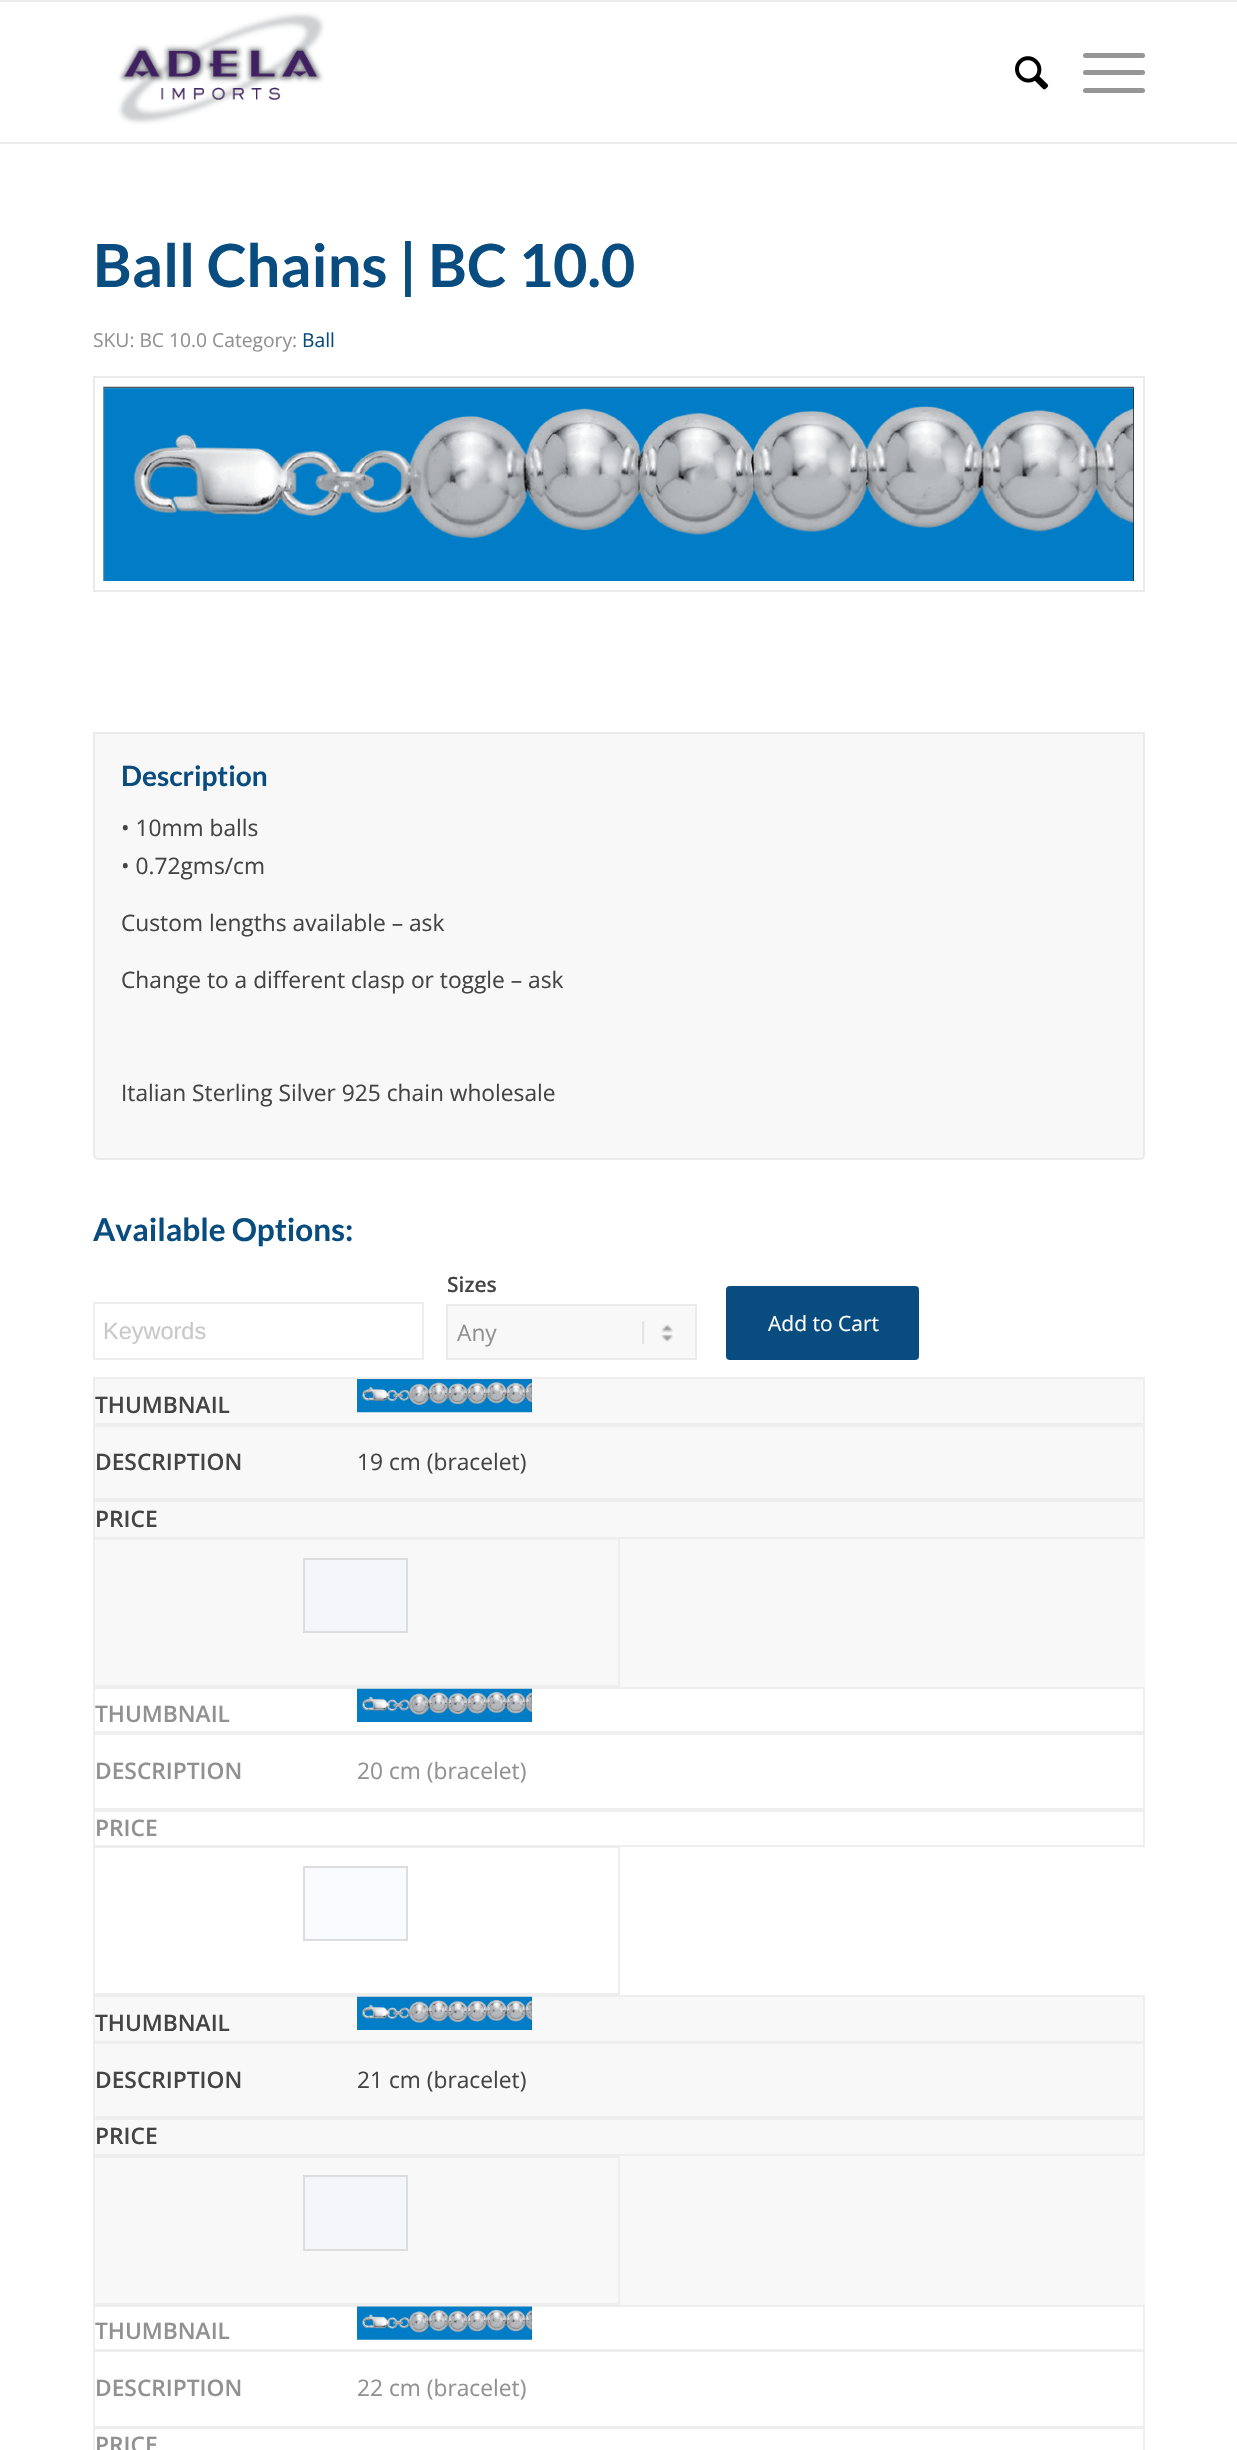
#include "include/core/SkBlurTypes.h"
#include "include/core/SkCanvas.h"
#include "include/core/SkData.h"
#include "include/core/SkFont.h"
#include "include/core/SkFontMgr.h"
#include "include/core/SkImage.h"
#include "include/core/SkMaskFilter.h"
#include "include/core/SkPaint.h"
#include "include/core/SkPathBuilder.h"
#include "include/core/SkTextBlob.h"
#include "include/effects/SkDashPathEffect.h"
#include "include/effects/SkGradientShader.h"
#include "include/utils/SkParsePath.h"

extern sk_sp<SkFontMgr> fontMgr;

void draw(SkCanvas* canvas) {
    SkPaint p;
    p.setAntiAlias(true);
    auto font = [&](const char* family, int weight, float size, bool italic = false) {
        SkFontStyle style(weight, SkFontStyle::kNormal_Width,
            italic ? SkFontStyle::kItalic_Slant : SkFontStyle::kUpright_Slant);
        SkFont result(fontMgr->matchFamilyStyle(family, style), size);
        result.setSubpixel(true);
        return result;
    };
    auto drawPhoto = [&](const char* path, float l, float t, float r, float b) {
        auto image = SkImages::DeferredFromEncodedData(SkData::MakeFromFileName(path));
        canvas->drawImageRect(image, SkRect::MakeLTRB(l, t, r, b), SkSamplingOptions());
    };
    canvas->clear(0xFFFFFFFF);
    p.setColor(0xFFEBEBEB);
    canvas->drawRect(SkRect::MakeLTRB(0, 0, 1237, 2), p);
    canvas->drawRect(SkRect::MakeLTRB(0, 142, 1237, 144), p);
    drawPhoto("media/1.png", 117, 12, 324, 125);
    drawPhoto("media/2.png", 1015, 56, 1049, 90);
    p.setColor(0xFF969696);
    canvas->drawRoundRect(SkRect::MakeLTRB(1083, 70, 1145, 75), 2.5f, 2.5f, p);
    canvas->drawRoundRect(SkRect::MakeLTRB(1083, 53, 1145, 58), 2.5f, 2.5f, p);
    canvas->drawRoundRect(SkRect::MakeLTRB(1083, 88, 1145, 93), 2.5f, 2.5f, p);
    auto font1 = font("Lato", 700, 59.5f);
    p.setColor(0xFF094C7F);
    canvas->drawString("Ball Chains | BC 10.0", 93, 287, font1, p);
    auto font2 = font("Open Sans", 400, 19.25f);
    p.setColor(0xFF919191);
    canvas->drawString("SKU: BC 10.0 Category:", 93, 347, font2, p);
    p.setColor(0xFF094C7F);
    canvas->drawString("Ball", 302, 347, font2, p);
    p.setStyle(SkPaint::kStroke_Style);
    p.setStrokeWidth(2);
    p.setColor(0xFFEBEBEB);
    canvas->drawRect(SkRect::MakeLTRB(94, 377, 1144, 591), p);
    drawPhoto("media/3.png", 103, 386, 1134, 581);
    p.setStyle(SkPaint::kFill_Style);
    p.setColor(0xFFF8F8F8);
    canvas->drawPath(SkPathBuilder().moveTo(94, 733).lineTo(1144, 733).lineTo(1144, 1155).cubicTo(1144, 1157, 1142, 1159, 1140, 1159).lineTo(98, 1159).cubicTo(96, 1159, 94, 1157, 94, 1155).close().detach(), p);
    p.setStyle(SkPaint::kStroke_Style);
    p.setColor(0xFFEBEBEB);
    canvas->drawPath(SkPathBuilder().moveTo(94, 733).lineTo(1144, 733).lineTo(1144, 1155).cubicTo(1144, 1157, 1142, 1159, 1140, 1159).lineTo(98, 1159).cubicTo(96, 1159, 94, 1157, 94, 1155).close().detach(), p);
    auto font3 = font("Lato", 700, 28);
    p.setStyle(SkPaint::kFill_Style);
    p.setColor(0xFF094C7F);
    canvas->drawString("Description", 121, 786, font3, p);
    auto font4 = font("Open Sans", 400, 22.75f);
    p.setColor(0xFF444444);
    {
        const struct { const char* s; float x, y; } items[] = {
            {"• 10mm balls", 121, 836},
            {"• 0.72gms/cm", 121, 874},
            {"Custom lengths available – ask", 121, 931},
            {"Change to a different clasp or toggle – ask", 121, 988},
            {"Italian Sterling Silver 925 chain wholesale", 121, 1101},
        };
        for (auto [s, x, y] : items) {
            canvas->drawString(s, x, y, font4, p);
        }
    }
    auto font5 = font("Lato", 700, 31.5f);
    p.setColor(0xFF094C7F);
    canvas->drawString("Available Options:", 93, 1241, font5, p);
    p.setStyle(SkPaint::kStroke_Style);
    p.setColor(0xFFEEEEEE);
    canvas->drawRect(SkRect::MakeLTRB(94, 1303, 423, 1359), p);
    auto font6 = font("Liberation Sans", 400, 23.5f);
    p.setStyle(SkPaint::kFill_Style);
    p.setColor(0xFFC8C8C8);
    canvas->drawString("Keywords", 103, 1339, font6, p);
    auto font7 = font("Open Sans", 600, 21);
    p.setColor(0xFF444444);
    canvas->drawString("Sizes", 447, 1292, font7, p);
    p.setColor(0xFFF8F8F8);
    canvas->drawRect(SkRect::MakeLTRB(448, 1306, 695, 1358), p);
    drawPhoto("media/4.png", 642, 1321, 673, 1344);
    p.setStyle(SkPaint::kStroke_Style);
    p.setColor(0xFFEBEBEB);
    canvas->drawRect(SkRect::MakeLTRB(447, 1305, 696, 1359), p);
    p.setStyle(SkPaint::kFill_Style);
    p.setColor(0xFF919191);
    canvas->drawString("Any", 457, 1341, font4, p);
    p.setColor(0xFF094C7F);
    canvas->drawRoundRect(SkRect::MakeLTRB(726, 1286, 919, 1360), 4, 4, p);
    auto font8 = font("Open Sans", 400, 21);
    p.setColor(0xFFFFFFFF);
    canvas->drawString("Add to Cart", 768, 1331, font8, p);
    {
        const struct { float l, t, r, b; SkColor color; } items[] = {
            {95, 1379, 1145, 1687, 0xFFF8F8F8},
            {93, 1377, 1145, 1379, 0xFFEEEEEE},
            {1143, 1377, 1145, 1425, 0xFFEEEEEE},
            {93, 1423, 1145, 1427, 0xFFEEEEEE},
            {93, 1377, 95, 1425, 0xFFEEEEEE},
        };
        for (auto [l, t, r, b, color] : items) {
            p.setColor(color);
            canvas->drawRect(SkRect::MakeLTRB(l, t, r, b), p);
        }
    }
    auto font9 = font("Open Sans", 600, 22.75f);
    p.setColor(0xFF444444);
    canvas->drawString("THUMBNAIL", 95, 1413, font9, p);
    drawPhoto("media/5.png", 357, 1379, 532, 1413);
    {
        const struct { float l, t, r, b; SkColor color; } items[] = {
            {1143, 1425, 1145, 1500, 0xFFEEEEEE},
            {93, 1498, 1145, 1502, 0xFFEEEEEE},
            {93, 1425, 95, 1500, 0xFFEEEEEE},
        };
        for (auto [l, t, r, b, color] : items) {
            p.setColor(color);
            canvas->drawRect(SkRect::MakeLTRB(l, t, r, b), p);
        }
    }
    p.setColor(0xFF444444);
    canvas->drawString("DESCRIPTION", 95, 1470, font9, p);
    canvas->drawString("19 cm (bracelet)", 357, 1470, font4, p);
    {
        const struct { float l, t, r, b; SkColor color; } items[] = {
            {1143, 1500, 1145, 1538, 0xFFEEEEEE},
            {93, 1537, 1145, 1539, 0xFFEEEEEE},
            {93, 1500, 95, 1538, 0xFFEEEEEE},
        };
        for (auto [l, t, r, b, color] : items) {
            p.setColor(color);
            canvas->drawRect(SkRect::MakeLTRB(l, t, r, b), p);
        }
    }
    p.setColor(0xFF444444);
    canvas->drawString("PRICE", 95, 1527, font9, p);
    p.setStyle(SkPaint::kStroke_Style);
    p.setColor(0xFFEEEEEE);
    canvas->drawRect(SkRect::MakeLTRB(94, 1539, 619, 1686), p);
    p.setStyle(SkPaint::kFill_Style);
    p.setColor(0xFFF5F6F9);
    canvas->drawRect(SkRect::MakeLTRB(304, 1559, 407, 1632), p);
    p.setStyle(SkPaint::kStroke_Style);
    p.setColor(0xFFDDDDDD);
    canvas->drawRect(SkRect::MakeLTRB(304, 1559, 407, 1632), p);
    p.setStyle(SkPaint::kFill_Style);
    {
        const struct { float l, t, r, b; SkColor color; } items[] = {
            {93, 1687, 1145, 1689, 0xFFEEEEEE},
            {1143, 1687, 1145, 1733, 0xFFEEEEEE},
            {93, 1731, 1145, 1735, 0xFFEEEEEE},
            {93, 1687, 95, 1733, 0xFFEEEEEE},
        };
        for (auto [l, t, r, b, color] : items) {
            p.setColor(color);
            canvas->drawRect(SkRect::MakeLTRB(l, t, r, b), p);
        }
    }
    p.setColor(0xFF919191);
    canvas->drawString("THUMBNAIL", 95, 1722, font9, p);
    drawPhoto("media/6.png", 357, 1688, 532, 1722);
    {
        const struct { float l, t, r, b; SkColor color; } items[] = {
            {1143, 1733, 1145, 1810, 0xFFEEEEEE},
            {93, 1808, 1145, 1812, 0xFFEEEEEE},
            {93, 1733, 95, 1810, 0xFFEEEEEE},
        };
        for (auto [l, t, r, b, color] : items) {
            p.setColor(color);
            canvas->drawRect(SkRect::MakeLTRB(l, t, r, b), p);
        }
    }
    p.setColor(0xFF919191);
    canvas->drawString("DESCRIPTION", 95, 1779, font9, p);
    canvas->drawString("20 cm (bracelet)", 357, 1779, font4, p);
    {
        const struct { float l, t, r, b; SkColor color; } items[] = {
            {1143, 1810, 1145, 1846, 0xFFEEEEEE},
            {93, 1845, 1145, 1847, 0xFFEEEEEE},
            {93, 1810, 95, 1846, 0xFFEEEEEE},
        };
        for (auto [l, t, r, b, color] : items) {
            p.setColor(color);
            canvas->drawRect(SkRect::MakeLTRB(l, t, r, b), p);
        }
    }
    p.setColor(0xFF919191);
    canvas->drawString("PRICE", 95, 1836, font9, p);
    p.setStyle(SkPaint::kStroke_Style);
    p.setColor(0xFFEEEEEE);
    canvas->drawRect(SkRect::MakeLTRB(94, 1847, 619, 1994), p);
    p.setStyle(SkPaint::kFill_Style);
    p.setColor(0xFFFAFBFF);
    canvas->drawRect(SkRect::MakeLTRB(304, 1867, 407, 1940), p);
    p.setStyle(SkPaint::kStroke_Style);
    p.setColor(0xFFDDDDDD);
    canvas->drawRect(SkRect::MakeLTRB(304, 1867, 407, 1940), p);
    p.setStyle(SkPaint::kFill_Style);
    {
        const struct { float l, t, r, b; SkColor color; } items[] = {
            {95, 1997, 1145, 2305, 0xFFF8F8F8},
            {93, 1995, 1145, 1997, 0xFFEEEEEE},
            {1143, 1995, 1145, 2042, 0xFFEEEEEE},
            {93, 2041, 1145, 2044, 0xFFEEEEEE},
            {93, 1995, 95, 2042, 0xFFEEEEEE},
        };
        for (auto [l, t, r, b, color] : items) {
            p.setColor(color);
            canvas->drawRect(SkRect::MakeLTRB(l, t, r, b), p);
        }
    }
    p.setColor(0xFF444444);
    canvas->drawString("THUMBNAIL", 95, 2031, font9, p);
    drawPhoto("media/7.png", 357, 1996, 532, 2030);
    {
        const struct { float l, t, r, b; SkColor color; } items[] = {
            {1143, 2042, 1145, 2118, 0xFFEEEEEE},
            {93, 2116, 1145, 2120, 0xFFEEEEEE},
            {93, 2042, 95, 2118, 0xFFEEEEEE},
        };
        for (auto [l, t, r, b, color] : items) {
            p.setColor(color);
            canvas->drawRect(SkRect::MakeLTRB(l, t, r, b), p);
        }
    }
    p.setColor(0xFF444444);
    canvas->drawString("DESCRIPTION", 95, 2088, font9, p);
    canvas->drawString("21 cm (bracelet)", 357, 2088, font4, p);
    {
        const struct { float l, t, r, b; SkColor color; } items[] = {
            {1143, 2118, 1145, 2156, 0xFFEEEEEE},
            {93, 2154, 1145, 2156, 0xFFEEEEEE},
            {93, 2118, 95, 2156, 0xFFEEEEEE},
        };
        for (auto [l, t, r, b, color] : items) {
            p.setColor(color);
            canvas->drawRect(SkRect::MakeLTRB(l, t, r, b), p);
        }
    }
    p.setColor(0xFF444444);
    canvas->drawString("PRICE", 95, 2144, font9, p);
    p.setStyle(SkPaint::kStroke_Style);
    p.setColor(0xFFEEEEEE);
    canvas->drawRect(SkRect::MakeLTRB(94, 2157, 619, 2304), p);
    p.setStyle(SkPaint::kFill_Style);
    p.setColor(0xFFF5F6F9);
    canvas->drawRect(SkRect::MakeLTRB(304, 2176, 407, 2250), p);
    p.setStyle(SkPaint::kStroke_Style);
    p.setColor(0xFFDDDDDD);
    canvas->drawRect(SkRect::MakeLTRB(304, 2176, 407, 2250), p);
    p.setStyle(SkPaint::kFill_Style);
    {
        const struct { float l, t, r, b; SkColor color; } items[] = {
            {93, 2305, 1145, 2307, 0xFFEEEEEE},
            {1143, 2305, 1145, 2350, 0xFFEEEEEE},
            {93, 2349, 1145, 2352, 0xFFEEEEEE},
            {93, 2305, 95, 2350, 0xFFEEEEEE},
        };
        for (auto [l, t, r, b, color] : items) {
            p.setColor(color);
            canvas->drawRect(SkRect::MakeLTRB(l, t, r, b), p);
        }
    }
    p.setColor(0xFF919191);
    canvas->drawString("THUMBNAIL", 95, 2339, font9, p);
    drawPhoto("media/8.png", 357, 2306, 532, 2340);
    {
        const struct { float l, t, r, b; SkColor color; } items[] = {
            {1143, 2350, 1145, 2427, 0xFFEEEEEE},
            {93, 2426, 1145, 2429, 0xFFEEEEEE},
            {93, 2350, 95, 2450, 0xFFEEEEEE},
        };
        for (auto [l, t, r, b, color] : items) {
            p.setColor(color);
            canvas->drawRect(SkRect::MakeLTRB(l, t, r, b), p);
        }
    }
    p.setColor(0xFF919191);
    canvas->drawString("DESCRIPTION", 95, 2396, font9, p);
    canvas->drawString("22 cm (bracelet)", 357, 2396, font4, p);
    p.setColor(0xFFEEEEEE);
    canvas->drawRect(SkRect::MakeLTRB(1143, 2427, 1145, 2450), p);
    p.setColor(0xFF919191);
    canvas->drawString("PRICE", 95, 2453, font9, p);
}
